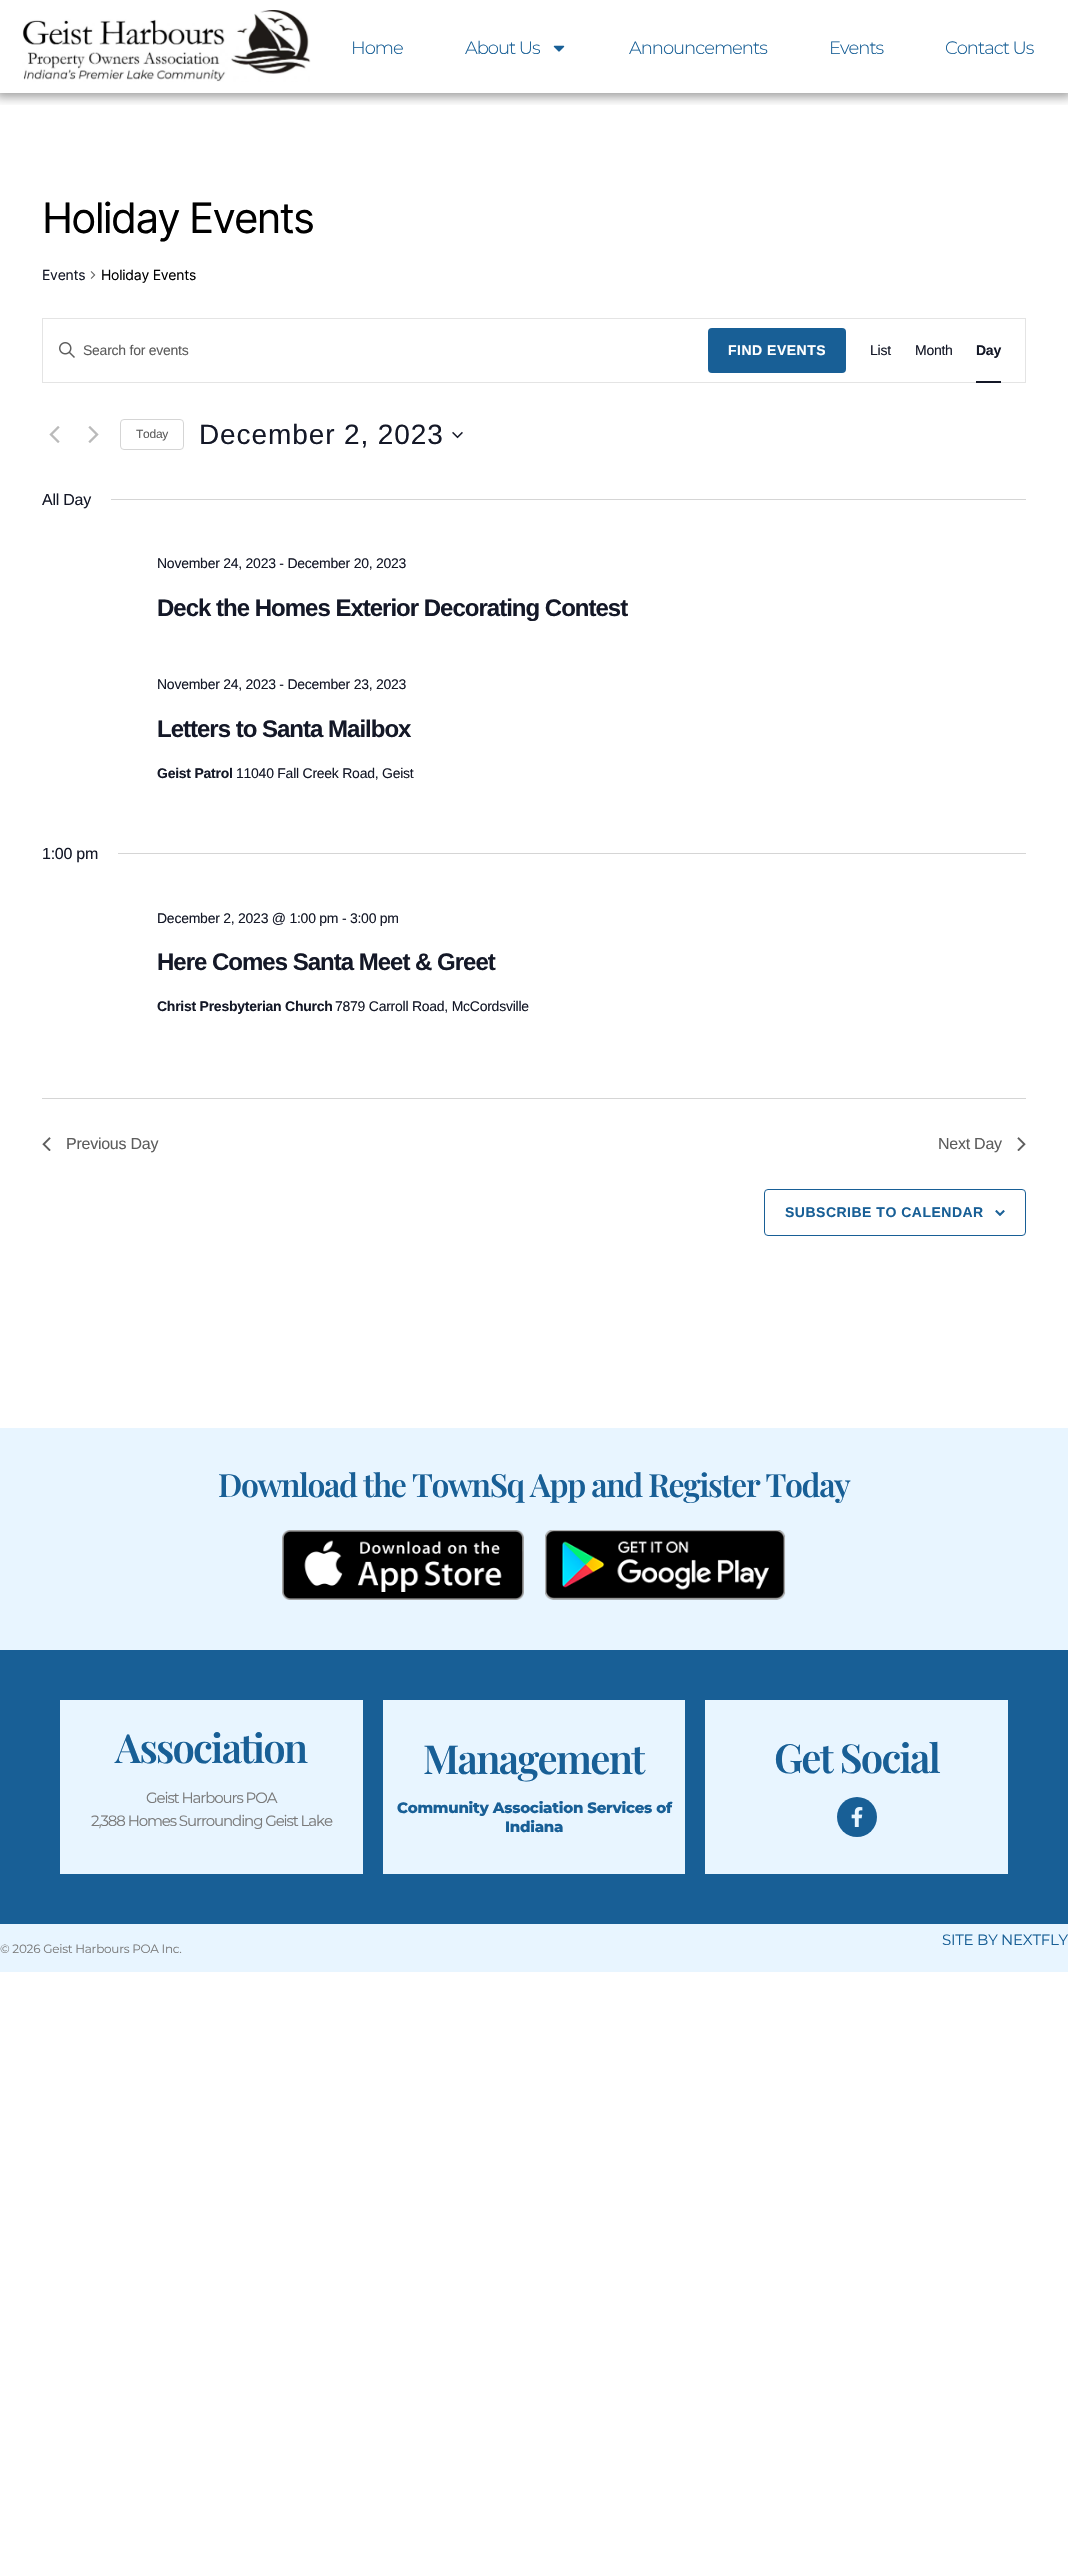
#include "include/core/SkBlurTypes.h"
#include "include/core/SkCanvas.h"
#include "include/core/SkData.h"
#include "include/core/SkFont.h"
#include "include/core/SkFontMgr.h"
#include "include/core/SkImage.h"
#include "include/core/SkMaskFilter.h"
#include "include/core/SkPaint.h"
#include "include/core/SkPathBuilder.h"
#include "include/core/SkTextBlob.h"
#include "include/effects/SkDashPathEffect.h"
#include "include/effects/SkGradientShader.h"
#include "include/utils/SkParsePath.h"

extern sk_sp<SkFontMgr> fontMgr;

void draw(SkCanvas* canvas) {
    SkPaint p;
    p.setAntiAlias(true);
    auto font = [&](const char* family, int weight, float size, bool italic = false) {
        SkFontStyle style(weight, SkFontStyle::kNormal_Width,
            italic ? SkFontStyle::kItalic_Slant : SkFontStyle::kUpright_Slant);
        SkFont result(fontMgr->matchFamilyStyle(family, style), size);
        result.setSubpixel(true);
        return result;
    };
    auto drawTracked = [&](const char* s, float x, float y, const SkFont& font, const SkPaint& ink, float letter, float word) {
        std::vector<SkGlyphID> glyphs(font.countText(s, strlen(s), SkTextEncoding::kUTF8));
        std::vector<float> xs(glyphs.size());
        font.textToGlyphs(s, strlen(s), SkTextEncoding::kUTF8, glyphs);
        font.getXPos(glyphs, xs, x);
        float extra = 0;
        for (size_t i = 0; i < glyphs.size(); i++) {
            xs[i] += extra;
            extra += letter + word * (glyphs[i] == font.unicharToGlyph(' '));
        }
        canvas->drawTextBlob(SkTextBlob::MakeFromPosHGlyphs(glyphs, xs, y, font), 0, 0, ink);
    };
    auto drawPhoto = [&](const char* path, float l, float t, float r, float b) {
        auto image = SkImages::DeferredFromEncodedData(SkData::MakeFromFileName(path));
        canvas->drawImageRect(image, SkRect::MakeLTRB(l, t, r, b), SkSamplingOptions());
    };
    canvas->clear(0xFFFFFFFF);
    canvas->save();
    canvas->clipRect(SkRect::MakeLTRB(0, 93, 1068, 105));
    p.setColor(0x61000000);
    p.setMaskFilter(SkMaskFilter::MakeBlur(kNormal_SkBlurStyle, 5));
    canvas->drawRect(SkRect::MakeLTRB(-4, -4, 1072, 97), p);
    p.setMaskFilter(nullptr);
    canvas->restore();
    drawPhoto("media/1.png", 22, 10, 311, 82);
    auto font1 = font("Montserrat", 300, 18);
    p.setColor(0xFF185F96);
    drawTracked("Home", 351, 54, font1, p, -1, 0);
    drawTracked("About Us", 465, 54, font1, p, -1, 0);
    drawPhoto("media/2.png", 553, 45, 565, 52);
    {
        const struct { const char* s; float x, y; } items[] = {
            {"Announcements", 629, 54},
            {"Events", 829, 54},
            {"Contact Us", 945, 54},
        };
        for (auto [s, x, y] : items) {
            drawTracked(s, x, y, font1, p, -1, 0);
        }
    }
    auto font2 = font("Inter", 400, 42);
    p.setColor(0xFF000000);
    drawTracked("Holiday Events", 42, 233, font2, p, -1.75f, 0);
    auto font3 = font("Inter", 400, 14);
    p.setColor(0xFF141827);
    drawTracked("Events", 42, 280, font3, p, -0.25f, 0);
    drawPhoto("media/3.png", 90, 271, 96, 279);
    p.setColor(0xFF000000);
    drawTracked("Holiday Events", 101, 280, font3, p, -0.25f, 0);
    p.setStyle(SkPaint::kStroke_Style);
    p.setStrokeWidth(1);
    p.setColor(0xFFE4E4E4);
    canvas->drawRect(SkRect::MakeLTRB(42.5f, 318.5f, 1025.5f, 382.5f), p);
    drawPhoto("media/4.png", 59, 342, 75, 358);
    auto font4 = font("Liberation Sans", 400, 14);
    p.setStyle(SkPaint::kFill_Style);
    p.setColor(0xFF5D5D5D);
    drawTracked("Search for events", 83, 355, font4, p, -0.25f, 0);
    p.setColor(0xFF185F96);
    canvas->drawRoundRect(SkRect::MakeLTRB(708, 328, 846, 373), 4, 4, p);
    auto font5 = font("Liberation Sans", 700, 14);
    p.setColor(0xFFFFFFFF);
    drawTracked("FIND EVENTS", 728, 355, font5, p, 0.5f, 0);
    p.setColor(0xFF141827);
    drawTracked("List", 870, 355, font4, p, -0.25f, 0);
    drawTracked("Month", 915, 355, font4, p, -0.25f, 0);
    drawTracked("Day", 976, 355, font5, p, -0.25f, 0);
    canvas->drawRect(SkRect::MakeLTRB(976, 381, 1001, 383), p);
    drawPhoto("media/5.png", 49, 426, 60, 443);
    drawPhoto("media/6.png", 88, 426, 99, 443);
    p.setStyle(SkPaint::kStroke_Style);
    p.setColor(0xFFD5D5D5);
    canvas->drawRoundRect(SkRect::MakeLTRB(120.5f, 419.5f, 183.5f, 449.5f), 3.5f, 3.5f, p);
    auto font6 = font("Liberation Sans", 400, 12);
    p.setStyle(SkPaint::kFill_Style);
    p.setColor(0xFF5D5D5D);
    drawTracked("Today", 136, 438, font6, p, -0.25f, 0);
    auto font7 = font("Liberation Sans", 400, 28);
    p.setColor(0xFF141827);
    drawTracked("December 2, 2023", 199, 444, font7, p, 0.9f, 0);
    drawPhoto("media/7.png", 452, 431, 463, 439);
    auto font8 = font("Liberation Sans", 400, 16);
    drawTracked("All Day", 42, 505, font8, p, -0.25f, 0);
    p.setColor(0xFFD5D5D5);
    canvas->drawRect(SkRect::MakeLTRB(111, 499, 1026, 500), p);
    p.setColor(0xFF141827);
    drawTracked("November 24, 2023 - December 20, 2023", 157, 568, font4, p, -0.25f, 0);
    auto font9 = font("Liberation Sans", 700, 24);
    drawTracked("Deck the Homes Exterior Decorating Contest", 157, 616, font9, p, -1, 0);
    drawTracked("November 24, 2023 - December 23, 2023", 157, 689, font4, p, -0.25f, 0);
    drawTracked("Letters to Santa Mailbox", 157, 737, font9, p, -1, 0);
    drawTracked("Geist Patrol", 157, 778, font5, p, -0.25f, 0);
    drawTracked("11040 Fall Creek Road, Geist", 236, 778, font4, p, -0.25f, 0);
    drawTracked("1:00 pm", 42, 859, font8, p, -0.25f, 0);
    p.setColor(0xFFD5D5D5);
    canvas->drawRect(SkRect::MakeLTRB(118, 853, 1026, 854), p);
    p.setColor(0xFF141827);
    drawTracked("December 2, 2023 @ 1:00 pm - 3:00 pm", 157, 923, font4, p, -0.25f, 0);
    drawTracked("Here Comes Santa Meet & Greet", 157, 970, font9, p, -1, 0);
    drawTracked("Christ Presbyterian Church", 157, 1011, font5, p, -0.25f, 0);
    drawTracked("7879 Carroll Road, McCordsville", 335, 1011, font4, p, -0.25f, 0);
    p.setColor(0xFFD5D5D5);
    canvas->drawRect(SkRect::MakeLTRB(42, 1098, 1026, 1099), p);
    drawPhoto("media/8.png", 42, 1137, 51, 1151);
    p.setColor(0xFF5D5D5D);
    drawTracked("Previous Day", 66, 1149, font8, p, -0.25f, 0);
    drawTracked("Next Day", 938, 1149, font8, p, -0.25f, 0);
    drawPhoto("media/9.png", 1017, 1137, 1026, 1151);
    p.setStyle(SkPaint::kStroke_Style);
    p.setColor(0xFF185F96);
    canvas->drawRoundRect(SkRect::MakeLTRB(764.5f, 1189.5f, 1025.5f, 1235.5f), 3.5f, 3.5f, p);
    p.setStyle(SkPaint::kFill_Style);
    drawTracked("SUBSCRIBE TO CALENDAR", 785, 1217, font5, p, 0.5f, 0);
    drawPhoto("media/10.png", 995, 1210, 1005, 1216);
    p.setColor(0xFFE8F5FF);
    canvas->drawRect(SkRect::MakeLTRB(0, 1428, 1068, 1650), p);
    auto font10 = font("Playfair Display", 600, 32);
    p.setColor(0xFF185F96);
    drawTracked("Download the TownSq App and Register Today", 218, 1497, font10, p, -1.35f, 0);
    drawPhoto("media/11.png", 282, 1530, 524, 1600);
    drawPhoto("media/12.png", 545, 1530, 786, 1600);
    canvas->drawRect(SkRect::MakeLTRB(0, 1650, 1068, 1924), p);
    p.setColor(0xFFE8F5FF);
    canvas->drawRect(SkRect::MakeLTRB(60, 1700, 363, 1874), p);
    auto font11 = font("Playfair Display", 600, 40);
    p.setColor(0xFF185F96);
    drawTracked("Association", 115, 1763, font11, p, -1.75f, 0);
    auto font12 = font("Montserrat", 400, 15);
    p.setColor(0xFF7A7A7A);
    drawTracked("Geist Harbours POA", 146, 1803, font12, p, -1.1f, 0);
    drawTracked("2,388 Homes Surrounding Geist Lake", 91, 1826, font12, p, -1.1f, 0);
    p.setColor(0xFFE8F5FF);
    canvas->drawRect(SkRect::MakeLTRB(383, 1700, 685, 1874), p);
    p.setColor(0xFF185F96);
    drawTracked("Management", 423, 1774, font11, p, -1.75f, 0);
    auto font13 = font("Montserrat", 800, 15);
    drawTracked("Community Association Services of", 397, 1813, font13, p, -0.25f, 0);
    drawTracked("Indiana", 505, 1832, font13, p, -0.25f, 0);
    p.setColor(0xFFE8F5FF);
    canvas->drawRect(SkRect::MakeLTRB(705, 1700, 1008, 1874), p);
    p.setColor(0xFF185F96);
    drawTracked("Get Social", 774, 1773, font11, p, -1.75f, 0);
    canvas->drawCircle(857, 1817, 20, p);
    drawPhoto("media/13.png", 851, 1807, 863, 1827);
    p.setColor(0xFFE8F5FF);
    canvas->drawRect(SkRect::MakeLTRB(0, 1924, 1068, 1972), p);
    p.setColor(0xFF185F96);
    drawTracked("SITE BY NEXTFLY", 942, 1945, font12, p, -0.25f, 0);
    auto font14 = font("Montserrat", 400, 12);
    p.setColor(0xFF7A7A7A);
    drawTracked("© 2026 Geist Harbours POA Inc.", 0, 1953, font14, p, -0.25f, 0);
}
